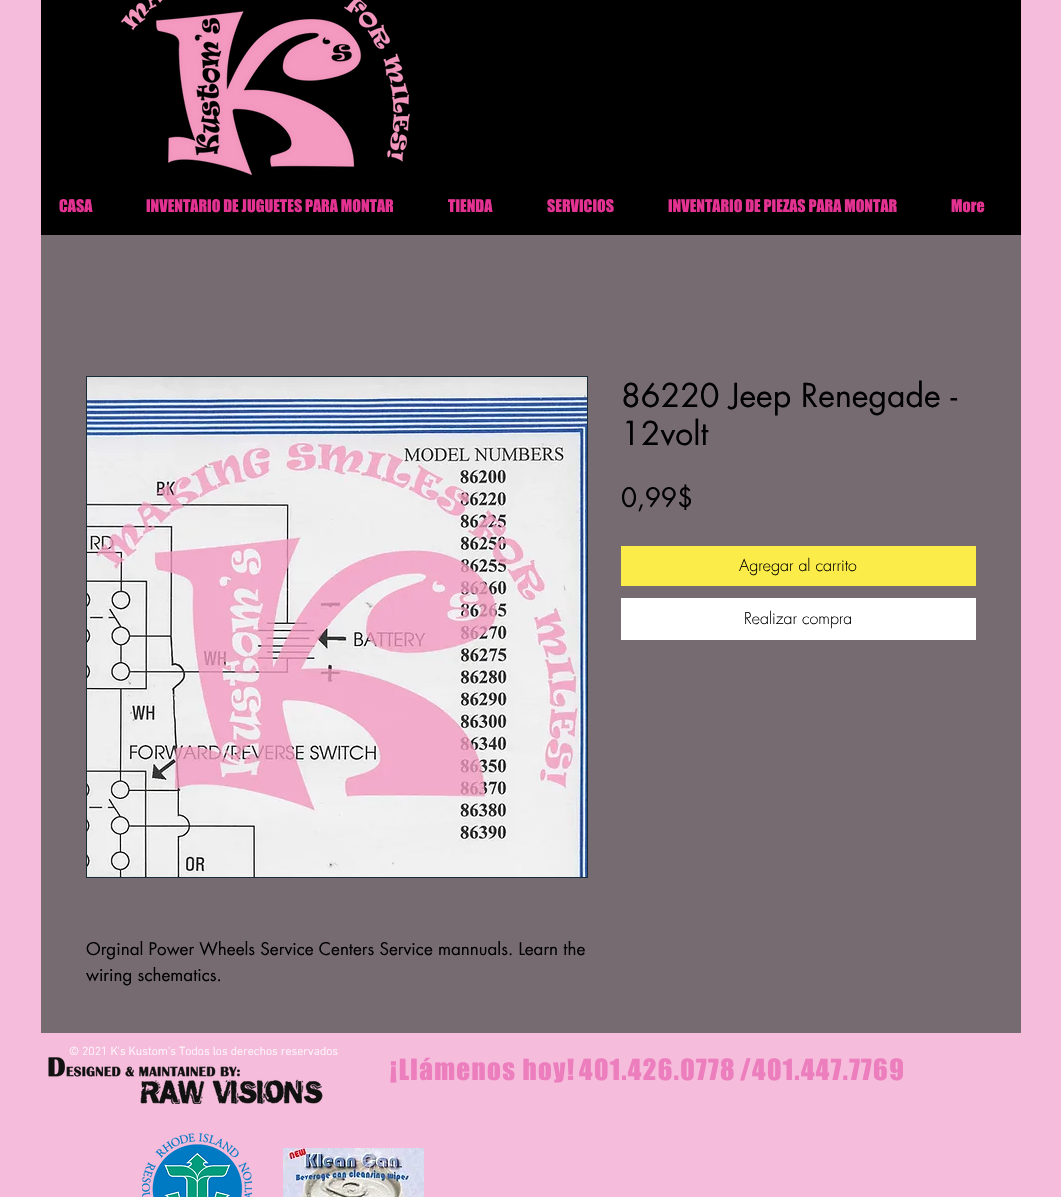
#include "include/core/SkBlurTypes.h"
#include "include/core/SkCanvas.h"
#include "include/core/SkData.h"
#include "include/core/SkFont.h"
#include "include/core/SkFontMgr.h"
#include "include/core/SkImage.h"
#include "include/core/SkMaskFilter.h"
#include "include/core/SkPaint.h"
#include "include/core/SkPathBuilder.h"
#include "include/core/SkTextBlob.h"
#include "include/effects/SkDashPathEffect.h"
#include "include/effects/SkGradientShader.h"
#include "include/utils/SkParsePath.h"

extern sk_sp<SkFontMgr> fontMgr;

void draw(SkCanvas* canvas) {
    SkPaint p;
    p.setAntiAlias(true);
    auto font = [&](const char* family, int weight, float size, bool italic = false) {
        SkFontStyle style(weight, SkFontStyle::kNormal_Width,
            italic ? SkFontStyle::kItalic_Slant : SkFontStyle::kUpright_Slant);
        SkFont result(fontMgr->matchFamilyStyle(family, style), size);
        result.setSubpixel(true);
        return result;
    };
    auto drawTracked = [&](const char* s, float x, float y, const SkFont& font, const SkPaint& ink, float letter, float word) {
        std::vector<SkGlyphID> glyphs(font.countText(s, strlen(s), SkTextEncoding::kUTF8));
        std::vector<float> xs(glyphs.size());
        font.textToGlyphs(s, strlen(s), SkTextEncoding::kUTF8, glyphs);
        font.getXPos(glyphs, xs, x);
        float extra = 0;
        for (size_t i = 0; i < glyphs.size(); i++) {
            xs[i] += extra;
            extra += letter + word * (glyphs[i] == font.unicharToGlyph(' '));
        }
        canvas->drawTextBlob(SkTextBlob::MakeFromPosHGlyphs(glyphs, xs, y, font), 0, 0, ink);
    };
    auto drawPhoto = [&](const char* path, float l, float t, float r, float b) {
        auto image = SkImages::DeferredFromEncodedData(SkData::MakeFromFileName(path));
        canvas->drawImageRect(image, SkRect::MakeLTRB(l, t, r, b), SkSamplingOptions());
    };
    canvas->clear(0xFFF5BCDB);
    p.setColor(0xFF000000);
    canvas->drawRect(SkRect::MakeLTRB(41, 0, 1021, 235), p);
    drawPhoto("media/1.png", 121, 0, 410, 175);
    auto font1 = font("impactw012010", 400, 16);
    p.setColor(0xFFE43292);
    {
        const struct { const char* s; float x, y; } items[] = {
            {"CASA", 59, 212},
            {"INVENTARIO DE JUGUETES PARA MONTAR", 146, 212},
            {"TIENDA", 448, 212},
            {"SERVICIOS", 547, 212},
            {"INVENTARIO DE PIEZAS PARA MONTAR", 668, 212},
            {"More", 951, 212},
        };
        for (auto [s, x, y] : items) {
            canvas->drawString(s, x, y, font1, p);
        }
    }
    p.setColor(0xFF766B71);
    canvas->drawRect(SkRect::MakeLTRB(41, 235, 1021, 1033), p);
    auto font2 = font("futura", 400, 32);
    p.setColor(0xFF000000);
    canvas->drawString("86220 Jeep Renegade -", 621, 407, font2, p);
    canvas->drawString("12volt", 621, 445, font2, p);
    auto font3 = font("futura", 400, 26);
    canvas->drawString("0,99$", 621, 507, font3, p);
    p.setColor(0xFFFBEC49);
    canvas->drawRect(SkRect::MakeLTRB(621, 546, 976, 586), p);
    auto font4 = font("futura", 300, 16);
    p.setColor(0xFF000000);
    canvas->drawString("Agregar al carrito", 739, 571, font4, p);
    p.setColor(0xFFFFFFFF);
    canvas->drawRect(SkRect::MakeLTRB(621, 598, 976, 640), p);
    p.setColor(0xFF000000);
    canvas->drawString("Realizar compra", 744, 624, font4, p);
    p.setStyle(SkPaint::kStroke_Style);
    p.setStrokeWidth(1);
    p.setColor(0xFF192D39);
    canvas->drawRect(SkRect::MakeLTRB(86.5f, 376.5f, 587.5f, 877.5f), p);
    drawPhoto("media/2.png", 87, 377, 587, 877);
    auto font5 = font("futura", 400, 17);
    p.setStyle(SkPaint::kFill_Style);
    p.setColor(0xFF000000);
    canvas->drawString("Orginal Power Wheels Service Centers Service mannuals. Learn the", 86, 955, font5, p);
    canvas->drawString("wiring schematics.", 86, 981, font5, p);
    auto font6 = font("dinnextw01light", 300, 12);
    p.setColor(0xFFFFFFFF);
    canvas->drawString("© 2021 K's Kustom's Todos los derechos reservados", 69, 1055, font6, p);
    drawPhoto("media/3.png", 48, 1057, 323, 1104);
    auto font7 = font("impactw012010", 400, 27);
    p.setColor(0xFFEC7EBE);
    {
        const struct { const char* s; float x, y; } items[] = {
            {"¡Llámenos hoy!", 390, 1080},
            {"401.426.0778", 579, 1080},
            {"/401.447.7769", 740, 1080},
        };
        for (auto [s, x, y] : items) {
            drawTracked(s, x, y, font7, p, 1.4f, 0);
        }
    }
    drawPhoto("media/4.png", 142, 1133, 252, 1197);
    drawPhoto("media/5.png", 283, 1148, 424, 1197);
}
